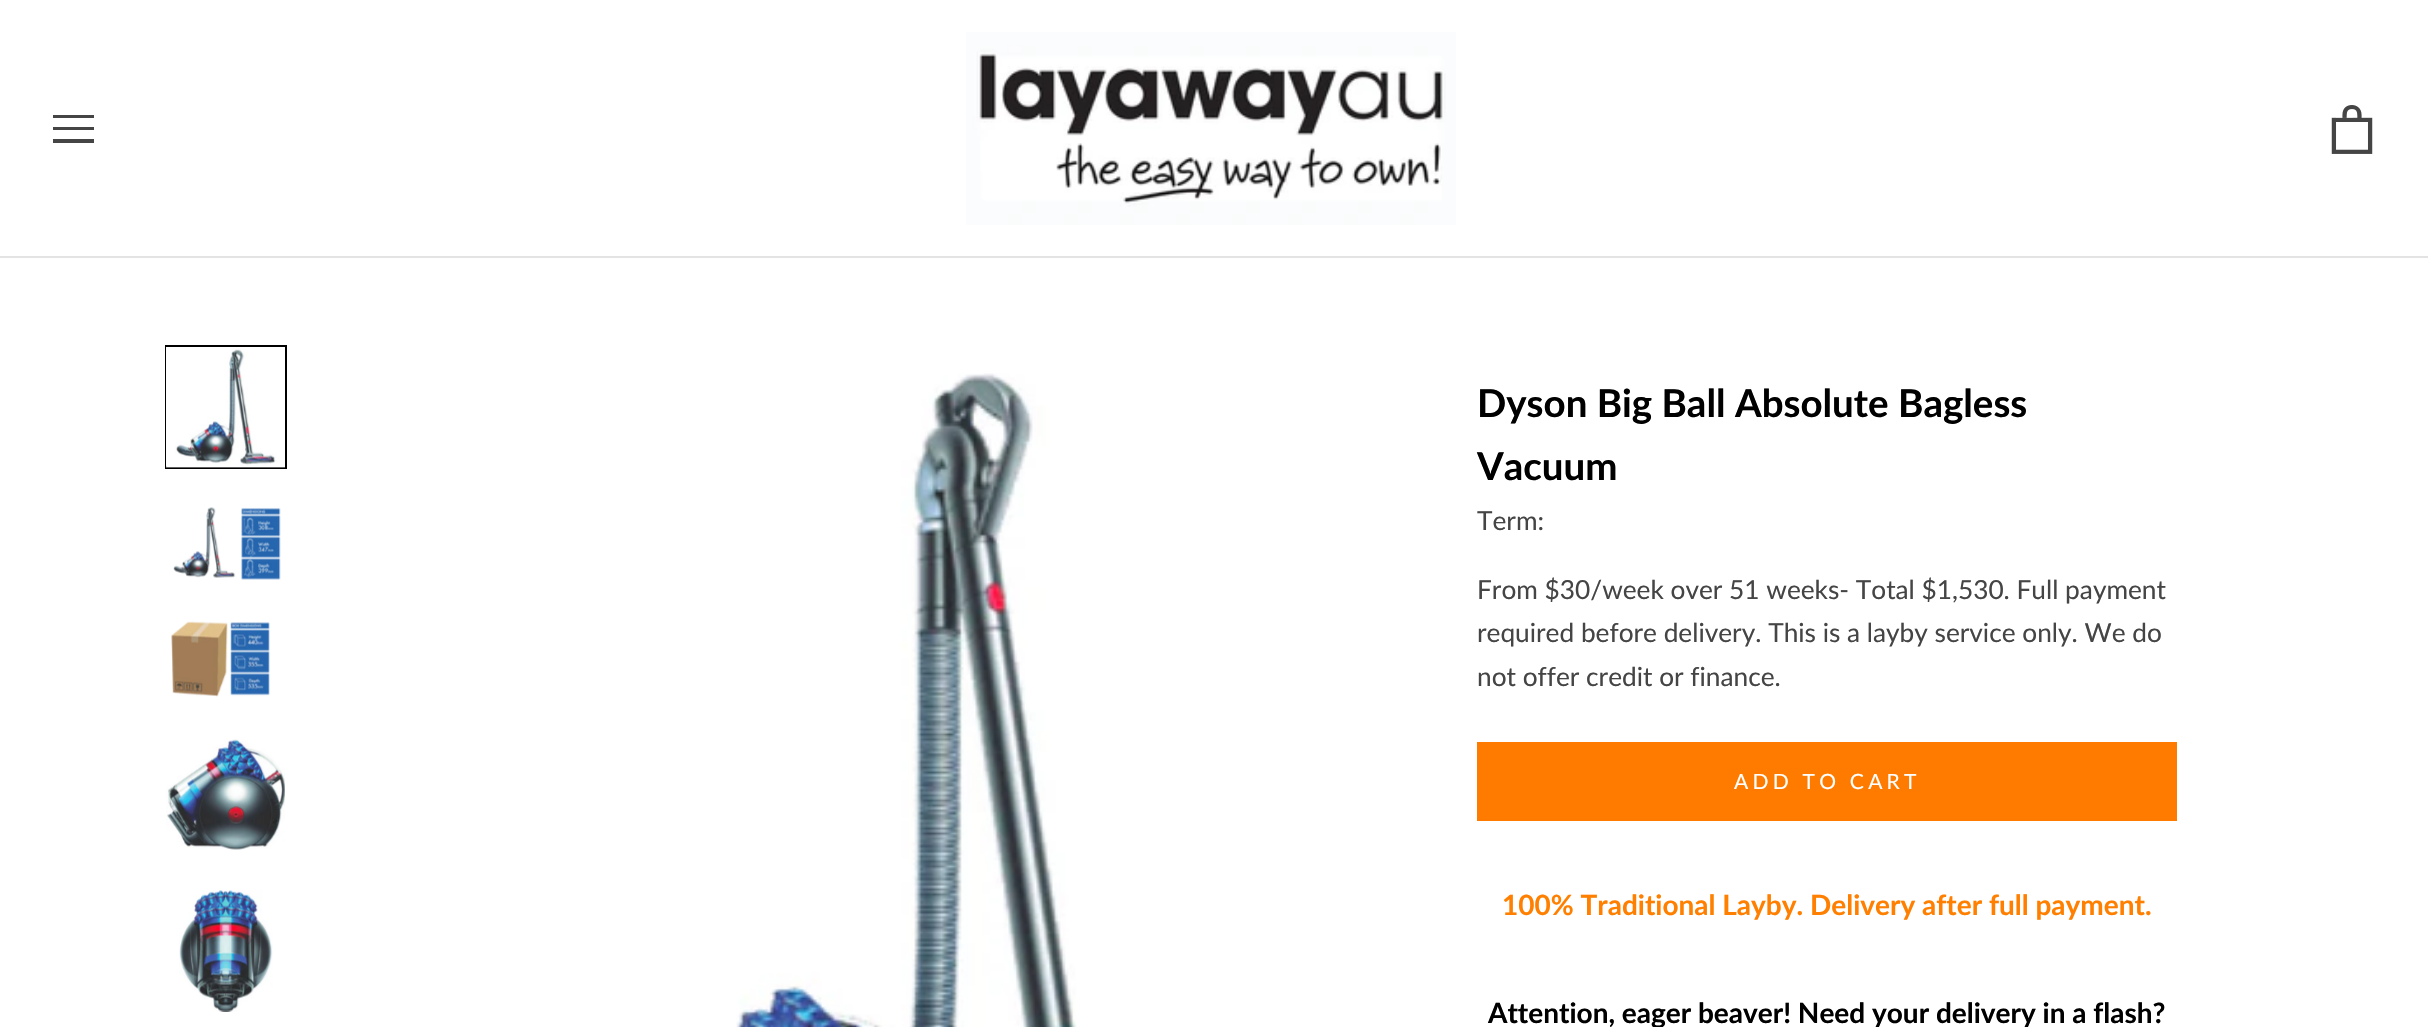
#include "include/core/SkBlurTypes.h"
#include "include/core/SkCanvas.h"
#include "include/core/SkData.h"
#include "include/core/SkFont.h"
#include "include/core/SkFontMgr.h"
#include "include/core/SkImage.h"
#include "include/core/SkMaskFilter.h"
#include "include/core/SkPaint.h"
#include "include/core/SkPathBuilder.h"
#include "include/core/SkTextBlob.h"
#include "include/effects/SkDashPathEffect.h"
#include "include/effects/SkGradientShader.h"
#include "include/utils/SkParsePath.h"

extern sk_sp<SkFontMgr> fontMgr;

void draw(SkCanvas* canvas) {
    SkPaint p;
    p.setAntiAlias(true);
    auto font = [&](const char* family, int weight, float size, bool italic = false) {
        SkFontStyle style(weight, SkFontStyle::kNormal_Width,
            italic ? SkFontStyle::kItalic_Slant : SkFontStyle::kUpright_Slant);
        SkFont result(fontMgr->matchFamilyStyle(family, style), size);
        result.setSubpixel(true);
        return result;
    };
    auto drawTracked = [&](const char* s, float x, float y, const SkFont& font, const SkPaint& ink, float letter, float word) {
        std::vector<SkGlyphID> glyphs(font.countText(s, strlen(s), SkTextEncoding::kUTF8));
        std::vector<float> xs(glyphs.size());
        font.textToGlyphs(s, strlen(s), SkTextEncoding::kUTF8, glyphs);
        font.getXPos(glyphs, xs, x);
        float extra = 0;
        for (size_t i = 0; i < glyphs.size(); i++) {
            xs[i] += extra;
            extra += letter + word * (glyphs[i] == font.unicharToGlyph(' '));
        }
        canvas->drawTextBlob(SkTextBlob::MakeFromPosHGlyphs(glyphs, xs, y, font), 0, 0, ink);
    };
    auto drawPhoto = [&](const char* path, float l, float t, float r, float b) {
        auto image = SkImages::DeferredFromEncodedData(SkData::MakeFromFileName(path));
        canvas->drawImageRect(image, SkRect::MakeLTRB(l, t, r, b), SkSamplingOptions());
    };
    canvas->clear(0xFFFFFFFF);
    p.setColor(0xFFE3E3E3);
    canvas->drawRect(SkRect::MakeLTRB(0, 256, 2428, 258), p);
    canvas->save();
    canvas->clipRect(SkRect::MakeLTRB(53, 114, 95, 144));
    p.setColor(0xFF454545);
    canvas->drawPath(SkPathBuilder().moveTo(52, 143).lineTo(52, 139).lineTo(94, 139).lineTo(94, 143).close().moveTo(52, 127).lineTo(94, 127).lineTo(94, 130).lineTo(52, 130).close().moveTo(52, 115).lineTo(94, 115).lineTo(94, 118).lineTo(52, 118).close().detach(), p);
    canvas->restore();
    drawPhoto("media/1.png", 966, 32, 1456, 225);
    drawPhoto("media/2.png", 2331, 105, 2373, 154);
    p.setStyle(SkPaint::kStroke_Style);
    p.setStrokeWidth(2);
    p.setColor(0xFF000000);
    canvas->drawRect(SkRect::MakeLTRB(166, 346, 286, 468), p);
    drawPhoto("media/3.png", 166, 347, 285, 468);
    drawPhoto("media/4.png", 173, 507, 281, 580);
    drawPhoto("media/5.png", 171, 621, 270, 697);
    drawPhoto("media/6.png", 166, 739, 285, 850);
    drawPhoto("media/7.png", 179, 890, 273, 1012);
    drawPhoto("media/8.png", 736, 373, 1077, 1027);
    auto font1 = font("Lato", 700, 38.5f);
    p.setStyle(SkPaint::kFill_Style);
    canvas->drawString("Dyson Big Ball Absolute Bagless", 1477, 417, font1, p);
    canvas->drawString("Vacuum", 1477, 480, font1, p);
    auto font2 = font("Lato", 400, 26.25f);
    p.setColor(0xFF454545);
    {
        const struct { const char* s; float x, y; } items[] = {
            {"Term:", 1477, 530},
            {"From $30/week over 51 weeks- Total $1,530. Full payment", 1477, 599},
            {"required before delivery. This is a layby service only. We do", 1477, 642},
            {"not offer credit or finance.", 1477, 686},
        };
        for (auto [s, x, y] : items) {
            canvas->drawString(s, x, y, font2, p);
        }
    }
    p.setColor(0xFFFF7B00);
    canvas->drawRect(SkRect::MakeLTRB(1477, 742, 2177, 821), p);
    auto font3 = font("Lato", 400, 21);
    p.setColor(0xFFFFFFFF);
    drawTracked("ADD TO CART", 1734, 789, font3, p, 4.25f, 0);
    auto font4 = font("Lato", 700, 28);
    p.setColor(0xFFFF8000);
    canvas->drawString("100% Traditional Layby. Delivery after full payment.", 1502, 915, font4, p);
    p.setColor(0xFF000000);
    canvas->drawString("Attention, eager beaver! Need your delivery in a flash?", 1488, 1023, font4, p);
}
